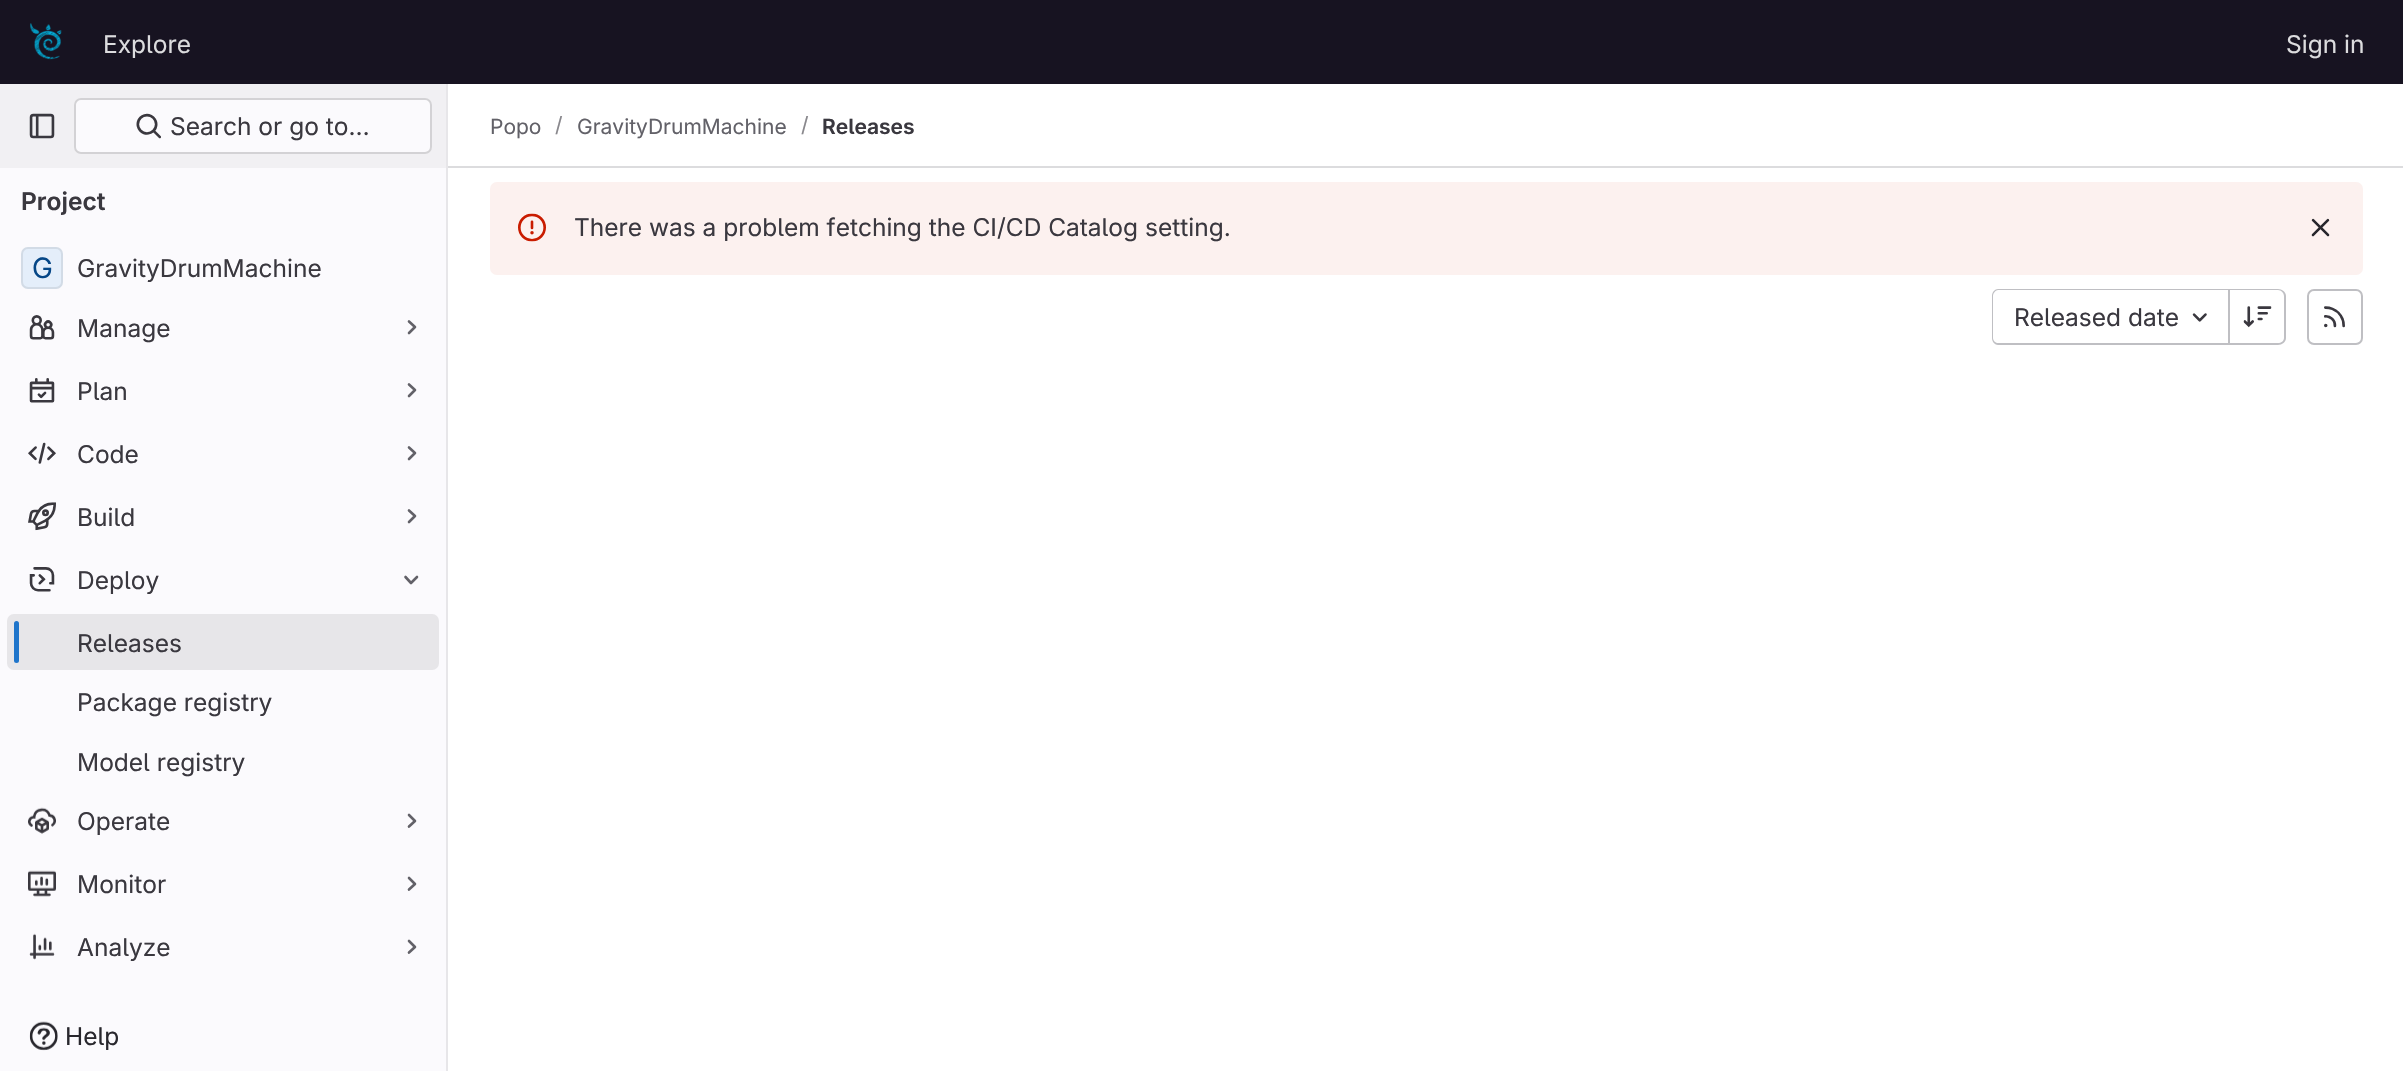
#include "include/core/SkBlurTypes.h"
#include "include/core/SkCanvas.h"
#include "include/core/SkData.h"
#include "include/core/SkFont.h"
#include "include/core/SkFontMgr.h"
#include "include/core/SkImage.h"
#include "include/core/SkMaskFilter.h"
#include "include/core/SkPaint.h"
#include "include/core/SkPathBuilder.h"
#include "include/core/SkTextBlob.h"
#include "include/effects/SkDashPathEffect.h"
#include "include/effects/SkGradientShader.h"
#include "include/utils/SkParsePath.h"

extern sk_sp<SkFontMgr> fontMgr;

void draw(SkCanvas* canvas) {
    SkPaint p;
    p.setAntiAlias(true);
    auto font = [&](const char* family, int weight, float size, bool italic = false) {
        SkFontStyle style(weight, SkFontStyle::kNormal_Width,
            italic ? SkFontStyle::kItalic_Slant : SkFontStyle::kUpright_Slant);
        SkFont result(fontMgr->matchFamilyStyle(family, style), size);
        result.setSubpixel(true);
        return result;
    };
    auto drawPhoto = [&](const char* path, float l, float t, float r, float b) {
        auto image = SkImages::DeferredFromEncodedData(SkData::MakeFromFileName(path));
        canvas->drawImageRect(image, SkRect::MakeLTRB(l, t, r, b), SkSamplingOptions());
    };
    canvas->clear(0xFFFFFFFF);
    p.setColor(0xFF171321);
    canvas->drawRect(SkRect::MakeLTRB(0, 0, 2403, 84), p);
    drawPhoto("media/1.png", 30, 23, 62, 60);
    auto font1 = font("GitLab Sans", 400, 24.5f);
    p.setColor(0xFFDCDCDE);
    canvas->drawString("Explore", 103, 53, font1, p);
    canvas->drawString("Sign in", 2286, 53, font1, p);
    {
        const struct { float l, t, r, b; SkColor color; } items[] = {
            {0, 168, 446, 1071, 0xFFFBFAFD},
            {446, 84, 448, 1071, 0xFFE7E6E9},
            {0, 84, 446, 168, 0xFFF1F0F3},
        };
        for (auto [l, t, r, b, color] : items) {
            p.setColor(color);
            canvas->drawRect(SkRect::MakeLTRB(l, t, r, b), p);
        }
    }
    drawPhoto("media/2.png", 29, 113, 55, 139);
    p.setColor(0xFFFBFAFD);
    canvas->drawRoundRect(SkRect::MakeLTRB(74, 98, 432, 154), 7, 7, p);
    p.setStyle(SkPaint::kStroke_Style);
    p.setStrokeWidth(2);
    p.setColor(0x29050506);
    canvas->drawRoundRect(SkRect::MakeLTRB(75, 99, 431, 153), 6, 6, p);
    drawPhoto("media/3.png", 136, 113, 161, 139);
    p.setStyle(SkPaint::kFill_Style);
    p.setColor(0xFF3A383F);
    canvas->drawString("Search or go to…", 170, 135, font1, p);
    auto font2 = font("GitLab Sans", 600, 24.5f);
    canvas->drawString("Project", 21, 210, font2, p);
    p.setColor(0xFFE4EEFA);
    canvas->drawRoundRect(SkRect::MakeLTRB(21, 247, 63, 289), 7, 7, p);
    p.setStyle(SkPaint::kStroke_Style);
    p.setColor(0x14050506);
    canvas->drawRoundRect(SkRect::MakeLTRB(22, 248, 62, 288), 6, 6, p);
    auto font3 = font("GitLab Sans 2", 400, 28);
    p.setStyle(SkPaint::kFill_Style);
    p.setColor(0xFF064787);
    canvas->drawString("G", 32, 278, font3, p);
    p.setColor(0xFF3A383F);
    canvas->drawString("GravityDrumMachine", 77, 277, font1, p);
    drawPhoto("media/4.png", 29, 315, 55, 340);
    canvas->drawString("Manage", 77, 337, font1, p);
    p.setStyle(SkPaint::kStroke_Style);
    p.setStrokeWidth(2.6f);
    p.setStrokeCap(SkPaint::kRound_Cap);
    p.setStrokeJoin(SkPaint::kRound_Join);
    p.setColor(0xFF626168);
    canvas->drawPath(SkPathBuilder().moveTo(409, 321.5f).lineTo(415, 327).lineTo(409, 333).detach(), p);
    drawPhoto("media/5.png", 29, 378, 55, 403);
    p.setStyle(SkPaint::kFill_Style);
    p.setColor(0xFF3A383F);
    canvas->drawString("Plan", 77, 400, font1, p);
    p.setStyle(SkPaint::kStroke_Style);
    p.setColor(0xFF626168);
    canvas->drawPath(SkPathBuilder().moveTo(409, 384.5f).lineTo(415, 390).lineTo(409, 396).detach(), p);
    drawPhoto("media/6.png", 28, 442, 56, 464);
    p.setStyle(SkPaint::kFill_Style);
    p.setColor(0xFF3A383F);
    canvas->drawString("Code", 77, 463, font1, p);
    p.setStyle(SkPaint::kStroke_Style);
    p.setColor(0xFF626168);
    canvas->drawPath(SkPathBuilder().moveTo(409, 447.5f).lineTo(415, 453).lineTo(409, 459).detach(), p);
    drawPhoto("media/7.png", 28, 502, 56, 531);
    p.setStyle(SkPaint::kFill_Style);
    p.setColor(0xFF3A383F);
    canvas->drawString("Build", 77, 526, font1, p);
    p.setStyle(SkPaint::kStroke_Style);
    p.setColor(0xFF626168);
    canvas->drawPath(SkPathBuilder().moveTo(409, 510.5f).lineTo(415, 516).lineTo(409, 522).detach(), p);
    drawPhoto("media/8.png", 29, 567, 55, 592);
    p.setStyle(SkPaint::kFill_Style);
    p.setColor(0xFF3A383F);
    canvas->drawString("Deploy", 77, 589, font1, p);
    p.setStyle(SkPaint::kStroke_Style);
    p.setColor(0xFF626168);
    canvas->drawPath(SkPathBuilder().moveTo(417, 577).lineTo(411, 583).lineTo(405.5f, 577).detach(), p);
    p.setStyle(SkPaint::kFill_Style);
    p.setColor(0xFFE7E6E9);
    canvas->drawRoundRect(SkRect::MakeLTRB(7, 614, 439, 670), 7, 7, p);
    p.setColor(0xFF1F75CB);
    canvas->drawRoundRect(SkRect::MakeLTRB(14, 621, 19, 663), 2.5f, 2.5f, p);
    p.setColor(0xFF3A383F);
    {
        const struct { const char* s; float x, y; } items[] = {
            {"Releases", 77, 652},
            {"Package registry", 77, 711},
            {"Model registry", 77, 771},
        };
        for (auto [s, x, y] : items) {
            canvas->drawString(s, x, y, font1, p);
        }
    }
    drawPhoto("media/9.png", 28, 807, 56, 834);
    canvas->drawString("Operate", 77, 830, font1, p);
    p.setStyle(SkPaint::kStroke_Style);
    p.setColor(0xFF626168);
    canvas->drawPath(SkPathBuilder().moveTo(409, 815).lineTo(415, 821).lineTo(409, 826.5f).detach(), p);
    drawPhoto("media/10.png", 28, 870, 56, 897);
    p.setStyle(SkPaint::kFill_Style);
    p.setColor(0xFF3A383F);
    canvas->drawString("Monitor", 77, 893, font1, p);
    p.setStyle(SkPaint::kStroke_Style);
    p.setColor(0xFF626168);
    canvas->drawPath(SkPathBuilder().moveTo(409, 878).lineTo(415, 884).lineTo(409, 889.5f).detach(), p);
    drawPhoto("media/11.png", 29, 933, 55, 960);
    p.setStyle(SkPaint::kFill_Style);
    p.setColor(0xFF3A383F);
    canvas->drawString("Analyze", 77, 956, font1, p);
    p.setStyle(SkPaint::kStroke_Style);
    p.setColor(0xFF626168);
    canvas->drawPath(SkPathBuilder().moveTo(409, 941).lineTo(415, 947).lineTo(409, 952.5f).detach(), p);
    drawPhoto("media/12.png", 29, 1021, 58, 1051);
    p.setStyle(SkPaint::kFill_Style);
    p.setColor(0xFF28272D);
    canvas->drawString("Help", 65, 1045, font1, p);
    p.setColor(0xFFDCDCDE);
    canvas->drawRect(SkRect::MakeLTRB(448, 166, 2403, 168), p);
    auto font4 = font("GitLab Sans", 400, 21);
    p.setColor(0xFF626168);
    canvas->drawString("Popo", 490, 134, font4, p);
    p.setColor(0xFF89888D);
    canvas->drawString("/", 555, 132, font4, p);
    p.setColor(0xFF626168);
    canvas->drawString("GravityDrumMachine", 577, 134, font4, p);
    p.setColor(0xFF89888D);
    canvas->drawString("/", 801, 132, font4, p);
    auto font5 = font("GitLab Sans", 600, 21);
    p.setColor(0xFF3A383F);
    canvas->drawString("Releases", 822, 134, font5, p);
    p.setColor(0xFFFCF1EF);
    canvas->drawRoundRect(SkRect::MakeLTRB(490, 182, 2363, 275), 7, 7, p);
    drawPhoto("media/13.png", 518, 213, 546, 242);
    p.setColor(0xFF3A383F);
    canvas->drawString("There was a problem fetching the CI/CD Catalog setting.", 574, 236, font1, p);
    drawPhoto("media/14.png", 2311, 218, 2330, 237);
    p.setColor(0xFFBFBFC3);
    canvas->drawPath(SkPathBuilder(SkPathFillType::kEvenOdd).moveTo(1998, 289).lineTo(2228, 289).lineTo(2228, 345).lineTo(1998, 345).cubicTo(1995, 345, 1992, 342, 1992, 338).lineTo(1992, 296).cubicTo(1992, 292, 1995, 289, 1998, 289).close().moveTo(1998, 290).lineTo(2228, 290).lineTo(2228, 343).lineTo(1998, 343).cubicTo(1996, 343, 1993, 341, 1993, 338).lineTo(1993, 296).cubicTo(1993, 293, 1996, 290, 1998, 290).close().detach(), p);
    p.setColor(0xFF3A383F);
    canvas->drawString("Released date", 2014, 326, font1, p);
    drawPhoto("media/15.png", 2192, 313, 2207, 322);
    p.setColor(0xFFBFBFC3);
    canvas->drawPath(SkPathBuilder(SkPathFillType::kEvenOdd).moveTo(2230, 289).lineTo(2278, 289).cubicTo(2282, 289, 2286, 292, 2286, 296).lineTo(2286, 338).cubicTo(2286, 342, 2282, 345, 2278, 345).lineTo(2230, 345).close().moveTo(2230, 290).lineTo(2278, 290).cubicTo(2281, 290, 2284, 293, 2284, 296).lineTo(2284, 338).cubicTo(2284, 341, 2281, 343, 2278, 343).lineTo(2230, 343).close().detach(), p);
    canvas->drawRect(SkRect::MakeLTRB(2228, 289, 2230, 345), p);
    drawPhoto("media/16.png", 2243, 306, 2272, 328);
    p.setStyle(SkPaint::kStroke_Style);
    p.setStrokeWidth(2);
    p.setStrokeCap(SkPaint::kButt_Cap);
    p.setStrokeJoin(SkPaint::kMiter_Join);
    canvas->drawRoundRect(SkRect::MakeLTRB(2308, 290, 2362, 344), 6, 6, p);
    drawPhoto("media/17.png", 2324, 306, 2345, 328);
}
